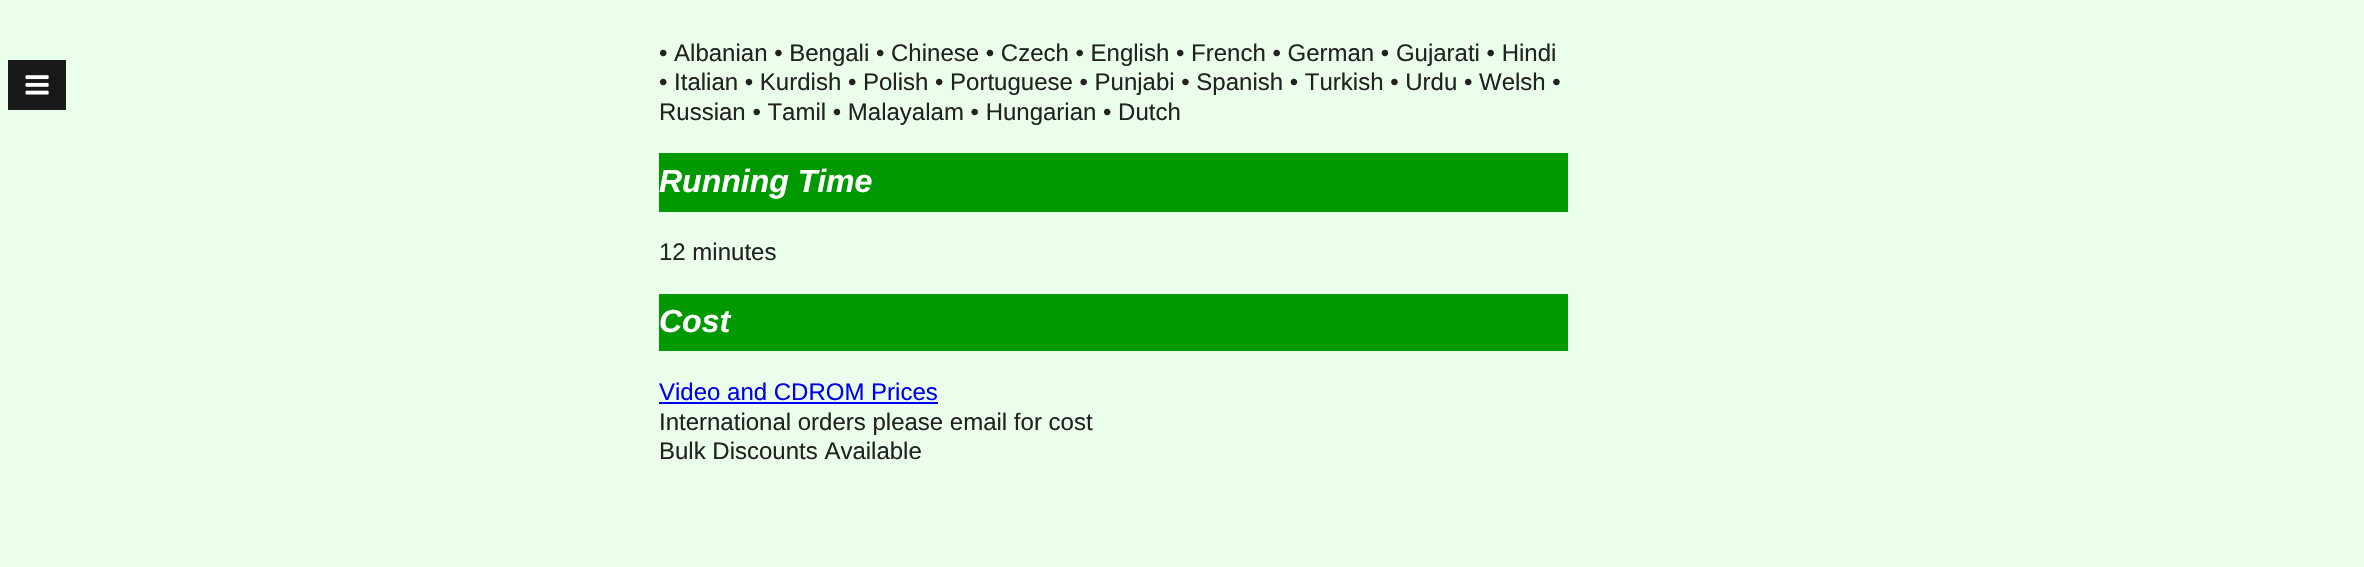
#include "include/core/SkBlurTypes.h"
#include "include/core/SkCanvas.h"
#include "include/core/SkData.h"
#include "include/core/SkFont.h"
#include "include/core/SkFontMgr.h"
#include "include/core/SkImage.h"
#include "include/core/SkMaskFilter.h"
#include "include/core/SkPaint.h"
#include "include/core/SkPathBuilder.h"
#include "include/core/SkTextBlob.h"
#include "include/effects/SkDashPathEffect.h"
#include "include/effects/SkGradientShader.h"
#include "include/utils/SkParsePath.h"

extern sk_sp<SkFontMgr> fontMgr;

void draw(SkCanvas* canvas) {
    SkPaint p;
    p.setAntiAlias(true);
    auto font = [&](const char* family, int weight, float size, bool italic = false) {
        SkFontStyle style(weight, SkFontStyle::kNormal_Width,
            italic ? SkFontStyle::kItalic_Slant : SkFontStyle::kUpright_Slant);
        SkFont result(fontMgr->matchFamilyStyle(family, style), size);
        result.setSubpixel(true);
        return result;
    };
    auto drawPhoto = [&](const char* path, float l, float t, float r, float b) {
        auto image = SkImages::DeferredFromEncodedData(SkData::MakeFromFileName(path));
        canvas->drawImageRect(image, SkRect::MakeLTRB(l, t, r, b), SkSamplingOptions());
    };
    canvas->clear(0xFFEBFEEC);
    p.setColor(0xFF191919);
    canvas->drawRect(SkRect::MakeLTRB(8, 60, 66, 110), p);
    drawPhoto("media/1.png", 25, 75, 49, 95);
    auto font1 = font("Liberation Sans", 400, 24);
    p.setColor(0xFF222222);
    {
        const struct { const char* s; float x, y; } items[] = {
            {"• Albanian • Bengali • Chinese • Czech • English • French • German • Gujarati • Hindi", 659, 61},
            {"• Italian • Kurdish • Polish • Portuguese • Punjabi • Spanish • Turkish • Urdu • Welsh •", 659, 90},
            {"Russian • Tamil • Malayalam • Hungarian • Dutch", 659, 120},
        };
        for (auto [s, x, y] : items) {
            canvas->drawString(s, x, y, font1, p);
        }
    }
    p.setColor(0xFF009900);
    canvas->drawRect(SkRect::MakeLTRB(659, 153, 1568, 212), p);
    auto font2 = font("Liberation Sans", 700, 32, true);
    p.setColor(0xFFFFFFFF);
    canvas->drawString("Running Time", 659, 192, font2, p);
    p.setColor(0xFF222222);
    canvas->drawString("12 minutes", 659, 260, font1, p);
    p.setColor(0xFF009900);
    canvas->drawRect(SkRect::MakeLTRB(659, 294, 1568, 351), p);
    p.setColor(0xFFFFFFFF);
    canvas->drawString("Cost", 659, 332, font2, p);
    p.setColor(0xFF0000EE);
    canvas->drawString("Video and CDROM Prices", 659, 400, font1, p);
    canvas->drawRect(SkRect::MakeLTRB(659, 402, 938, 404), p);
    p.setColor(0xFF222222);
    canvas->drawString("International orders please email for cost", 659, 430, font1, p);
    canvas->drawString("Bulk Discounts Available", 659, 459, font1, p);
}
